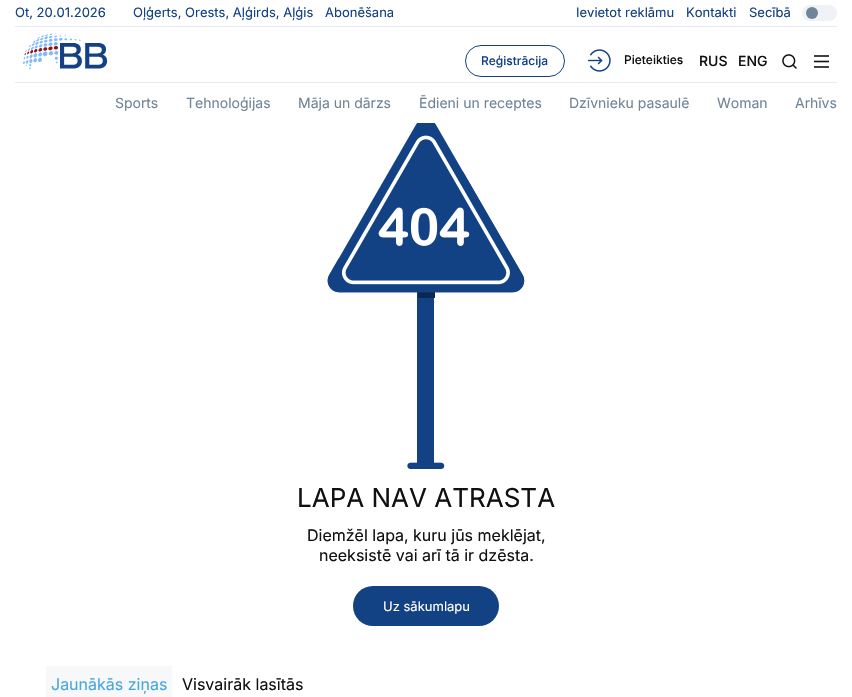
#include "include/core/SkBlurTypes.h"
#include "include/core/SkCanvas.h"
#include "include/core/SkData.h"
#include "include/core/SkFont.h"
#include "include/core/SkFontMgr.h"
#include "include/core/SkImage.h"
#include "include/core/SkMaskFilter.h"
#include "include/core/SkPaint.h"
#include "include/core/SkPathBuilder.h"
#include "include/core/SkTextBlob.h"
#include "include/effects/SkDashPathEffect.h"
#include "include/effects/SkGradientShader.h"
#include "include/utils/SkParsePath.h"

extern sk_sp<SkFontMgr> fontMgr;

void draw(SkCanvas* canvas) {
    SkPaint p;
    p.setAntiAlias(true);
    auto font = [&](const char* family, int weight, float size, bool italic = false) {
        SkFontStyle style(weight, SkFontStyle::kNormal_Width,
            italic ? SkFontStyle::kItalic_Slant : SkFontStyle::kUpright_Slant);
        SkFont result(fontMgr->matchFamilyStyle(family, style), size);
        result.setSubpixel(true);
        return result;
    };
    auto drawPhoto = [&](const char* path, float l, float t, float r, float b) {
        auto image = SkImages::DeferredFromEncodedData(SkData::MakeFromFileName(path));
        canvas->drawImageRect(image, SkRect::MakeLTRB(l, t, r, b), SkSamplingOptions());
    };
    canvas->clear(0xFFFFFFFF);
    p.setColor(0xFFE7ECF3);
    canvas->drawRect(SkRect::MakeLTRB(15, 26, 837, 27), p);
    auto font1 = font("Inter", 400, 13);
    p.setColor(0xFF124184);
    {
        const struct { const char* s; float x, y; } items[] = {
            {"Ot, 20.01.2026", 15, 17},
            {"Oļģerts, Orests, Aļģirds, Aļģis", 133, 17},
            {"Abonēšana", 325, 17},
            {"Ievietot reklāmu", 576, 17},
            {"Kontakti", 686, 17},
            {"Secībā", 749, 17},
        };
        for (auto [s, x, y] : items) {
            canvas->drawString(s, x, y, font1, p);
        }
    }
    p.setColor(0xFFEFF3F8);
    canvas->drawRoundRect(SkRect::MakeLTRB(802, 5, 837, 21), 8, 8, p);
    p.setColor(0xFF708597);
    canvas->drawCircle(812, 13, 6, p);
    p.setColor(0xFFE7ECF3);
    canvas->drawRect(SkRect::MakeLTRB(15, 82, 837, 83), p);
    drawPhoto("media/1.png", 23, 33, 108, 70);
    p.setStyle(SkPaint::kStroke_Style);
    p.setStrokeWidth(1);
    p.setColor(0xFF124184);
    canvas->drawRoundRect(SkRect::MakeLTRB(465.5f, 45.5f, 564.5f, 76.5f), 15.5f, 15.5f, p);
    auto font2 = font("Inter", 500, 12);
    p.setStyle(SkPaint::kFill_Style);
    canvas->drawString("Reģistrācija", 481, 65, font2, p);
    drawPhoto("media/2.png", 588, 49, 611, 72);
    p.setColor(0xFF111111);
    canvas->drawString("Pieteikties", 624, 64, font2, p);
    auto font3 = font("Inter", 500, 14);
    canvas->drawString("RUS", 699, 66, font3, p);
    canvas->drawString("ENG", 738, 66, font3, p);
    drawPhoto("media/3.png", 782, 54, 797, 69);
    p.setColor(0xFF414141);
    canvas->drawRect(SkRect::MakeLTRB(814, 66, 829, 68), p);
    p.setStyle(SkPaint::kStroke_Style);
    p.setStrokeWidth(1.6f);
    p.setColor(0xFF111111);
    canvas->drawPath(SkPathBuilder().moveTo(829, 61.5f).lineTo(814, 61.5f).detach(), p);
    p.setStyle(SkPaint::kFill_Style);
    p.setColor(0xFF414141);
    canvas->drawRect(SkRect::MakeLTRB(814, 55, 829, 57), p);
    auto font4 = font("Inter", 400, 14);
    p.setColor(0xFF708597);
    {
        const struct { const char* s; float x, y; } items[] = {
            {"Sports", 115, 108},
            {"Tehnoloģijas", 186, 108},
            {"Māja un dārzs", 298, 108},
            {"Ēdieni un receptes", 419, 108},
            {"Dzīvnieku pasaulē", 569, 108},
            {"Woman", 717, 108},
            {"Arhīvs", 795, 108},
        };
        for (auto [s, x, y] : items) {
            canvas->drawString(s, x, y, font4, p);
        }
    }
    drawPhoto("media/4.png", 327, 123, 525, 469);
    auto font5 = font("Inter", 400, 26);
    p.setColor(0xFF111111);
    canvas->drawString("LAPA NAV ATRASTA", 297, 507, font5, p);
    auto font6 = font("Inter", 400, 16);
    canvas->drawString("Diemžēl lapa, kuru jūs meklējat,", 307, 541, font6, p);
    canvas->drawString("neeksistē vai arī tā ir dzēsta.", 319, 561, font6, p);
    p.setColor(0xFF124184);
    canvas->drawRoundRect(SkRect::MakeLTRB(353, 586, 499, 626), 20, 20, p);
    p.setColor(0xFFFFFFFF);
    canvas->drawString("Uz sākumlapu", 383, 611, font1, p);
    p.setColor(0xFFF6F8FA);
    canvas->drawRect(SkRect::MakeLTRB(46, 666, 172, 697), p);
    p.setColor(0xFF48A7E0);
    canvas->drawString("Jaunākās ziņas", 51, 690, font6, p);
    p.setColor(0xFF111111);
    canvas->drawString("Visvairāk lasītās", 182, 690, font6, p);
}
